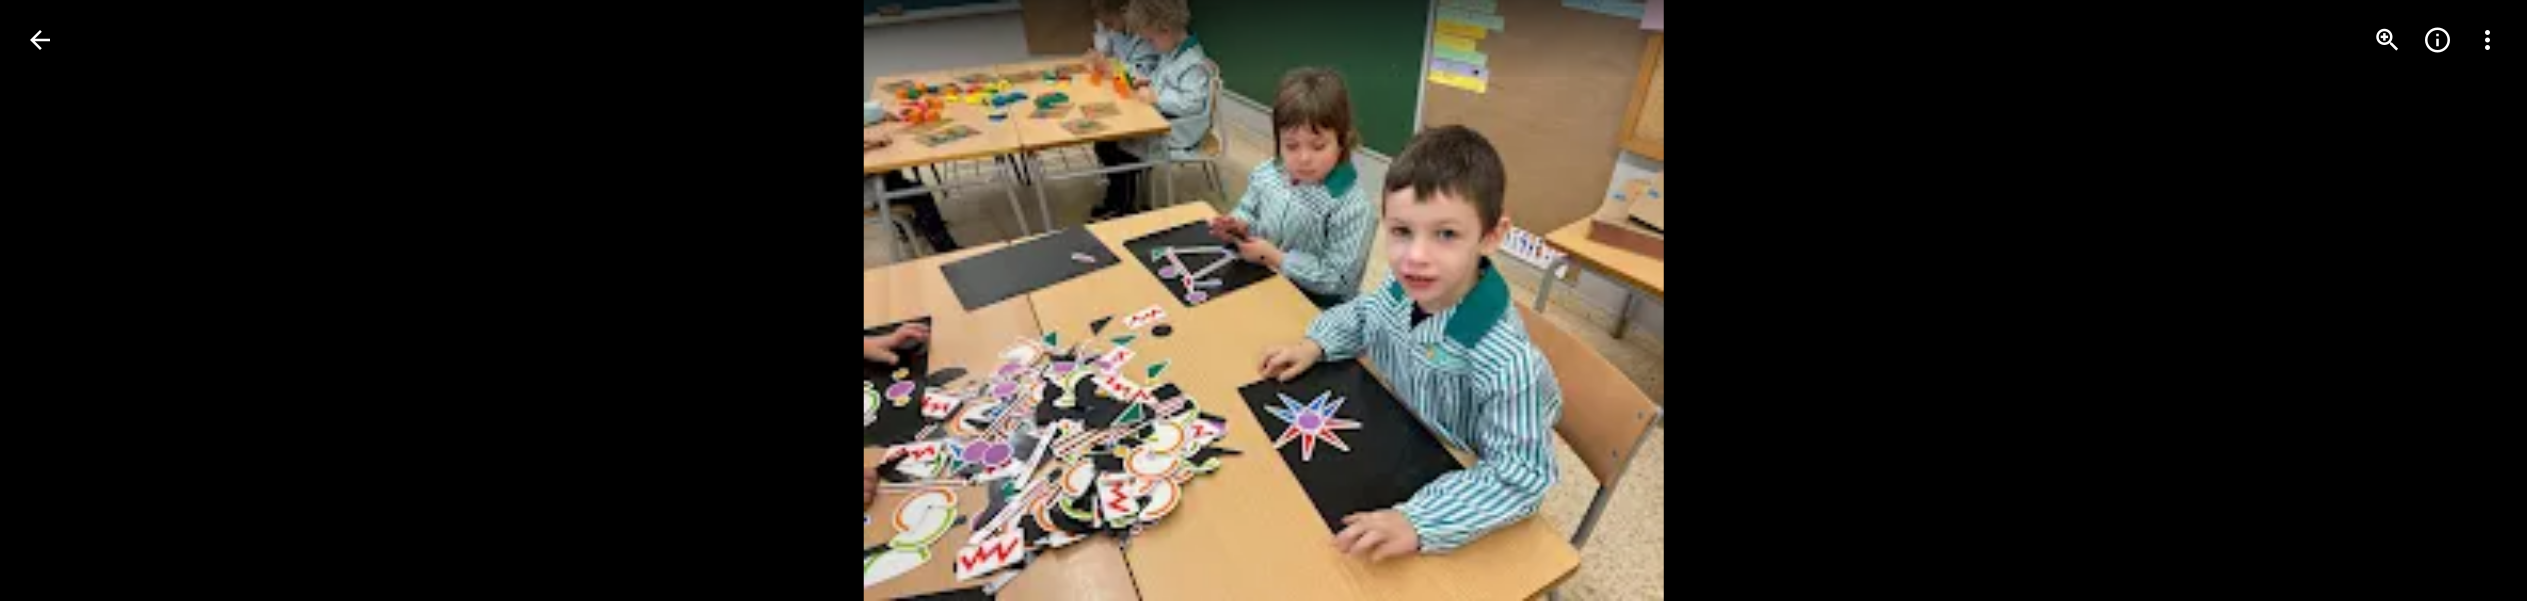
#include "include/core/SkBlurTypes.h"
#include "include/core/SkCanvas.h"
#include "include/core/SkData.h"
#include "include/core/SkFont.h"
#include "include/core/SkFontMgr.h"
#include "include/core/SkImage.h"
#include "include/core/SkMaskFilter.h"
#include "include/core/SkPaint.h"
#include "include/core/SkPathBuilder.h"
#include "include/core/SkTextBlob.h"
#include "include/effects/SkDashPathEffect.h"
#include "include/effects/SkGradientShader.h"
#include "include/utils/SkParsePath.h"

extern sk_sp<SkFontMgr> fontMgr;

void draw(SkCanvas* canvas) {
    SkPaint p;
    p.setAntiAlias(true);
    auto drawPhoto = [&](const char* path, float l, float t, float r, float b) {
        auto image = SkImages::DeferredFromEncodedData(SkData::MakeFromFileName(path));
        canvas->drawImageRect(image, SkRect::MakeLTRB(l, t, r, b), SkSamplingOptions());
    };
    canvas->clear(0xFF000000);
    drawPhoto("media/5.png", 863, 0, 1664, 601);
    {
        const SkColor colors[] = {0x99000000, 0x00000000};
        const float stops[] = {0, 1};
        const SkPoint ends[] = {{1264, 0}, {1264, 80}};
        p.setShader(SkGradientShader::MakeLinear(ends, colors, stops, 2, SkTileMode::kClamp));
        p.setAlpha(255);
    }
    canvas->drawRect(SkRect::MakeLTRB(863, 0, 1664, 77), p);
    drawPhoto("media/1.png", 30, 30, 50, 50);
    drawPhoto("media/2.png", 2376, 28, 2398, 51);
    drawPhoto("media/3.png", 2425, 27, 2450, 53);
    drawPhoto("media/4.png", 2485, 30, 2490, 50);
}
